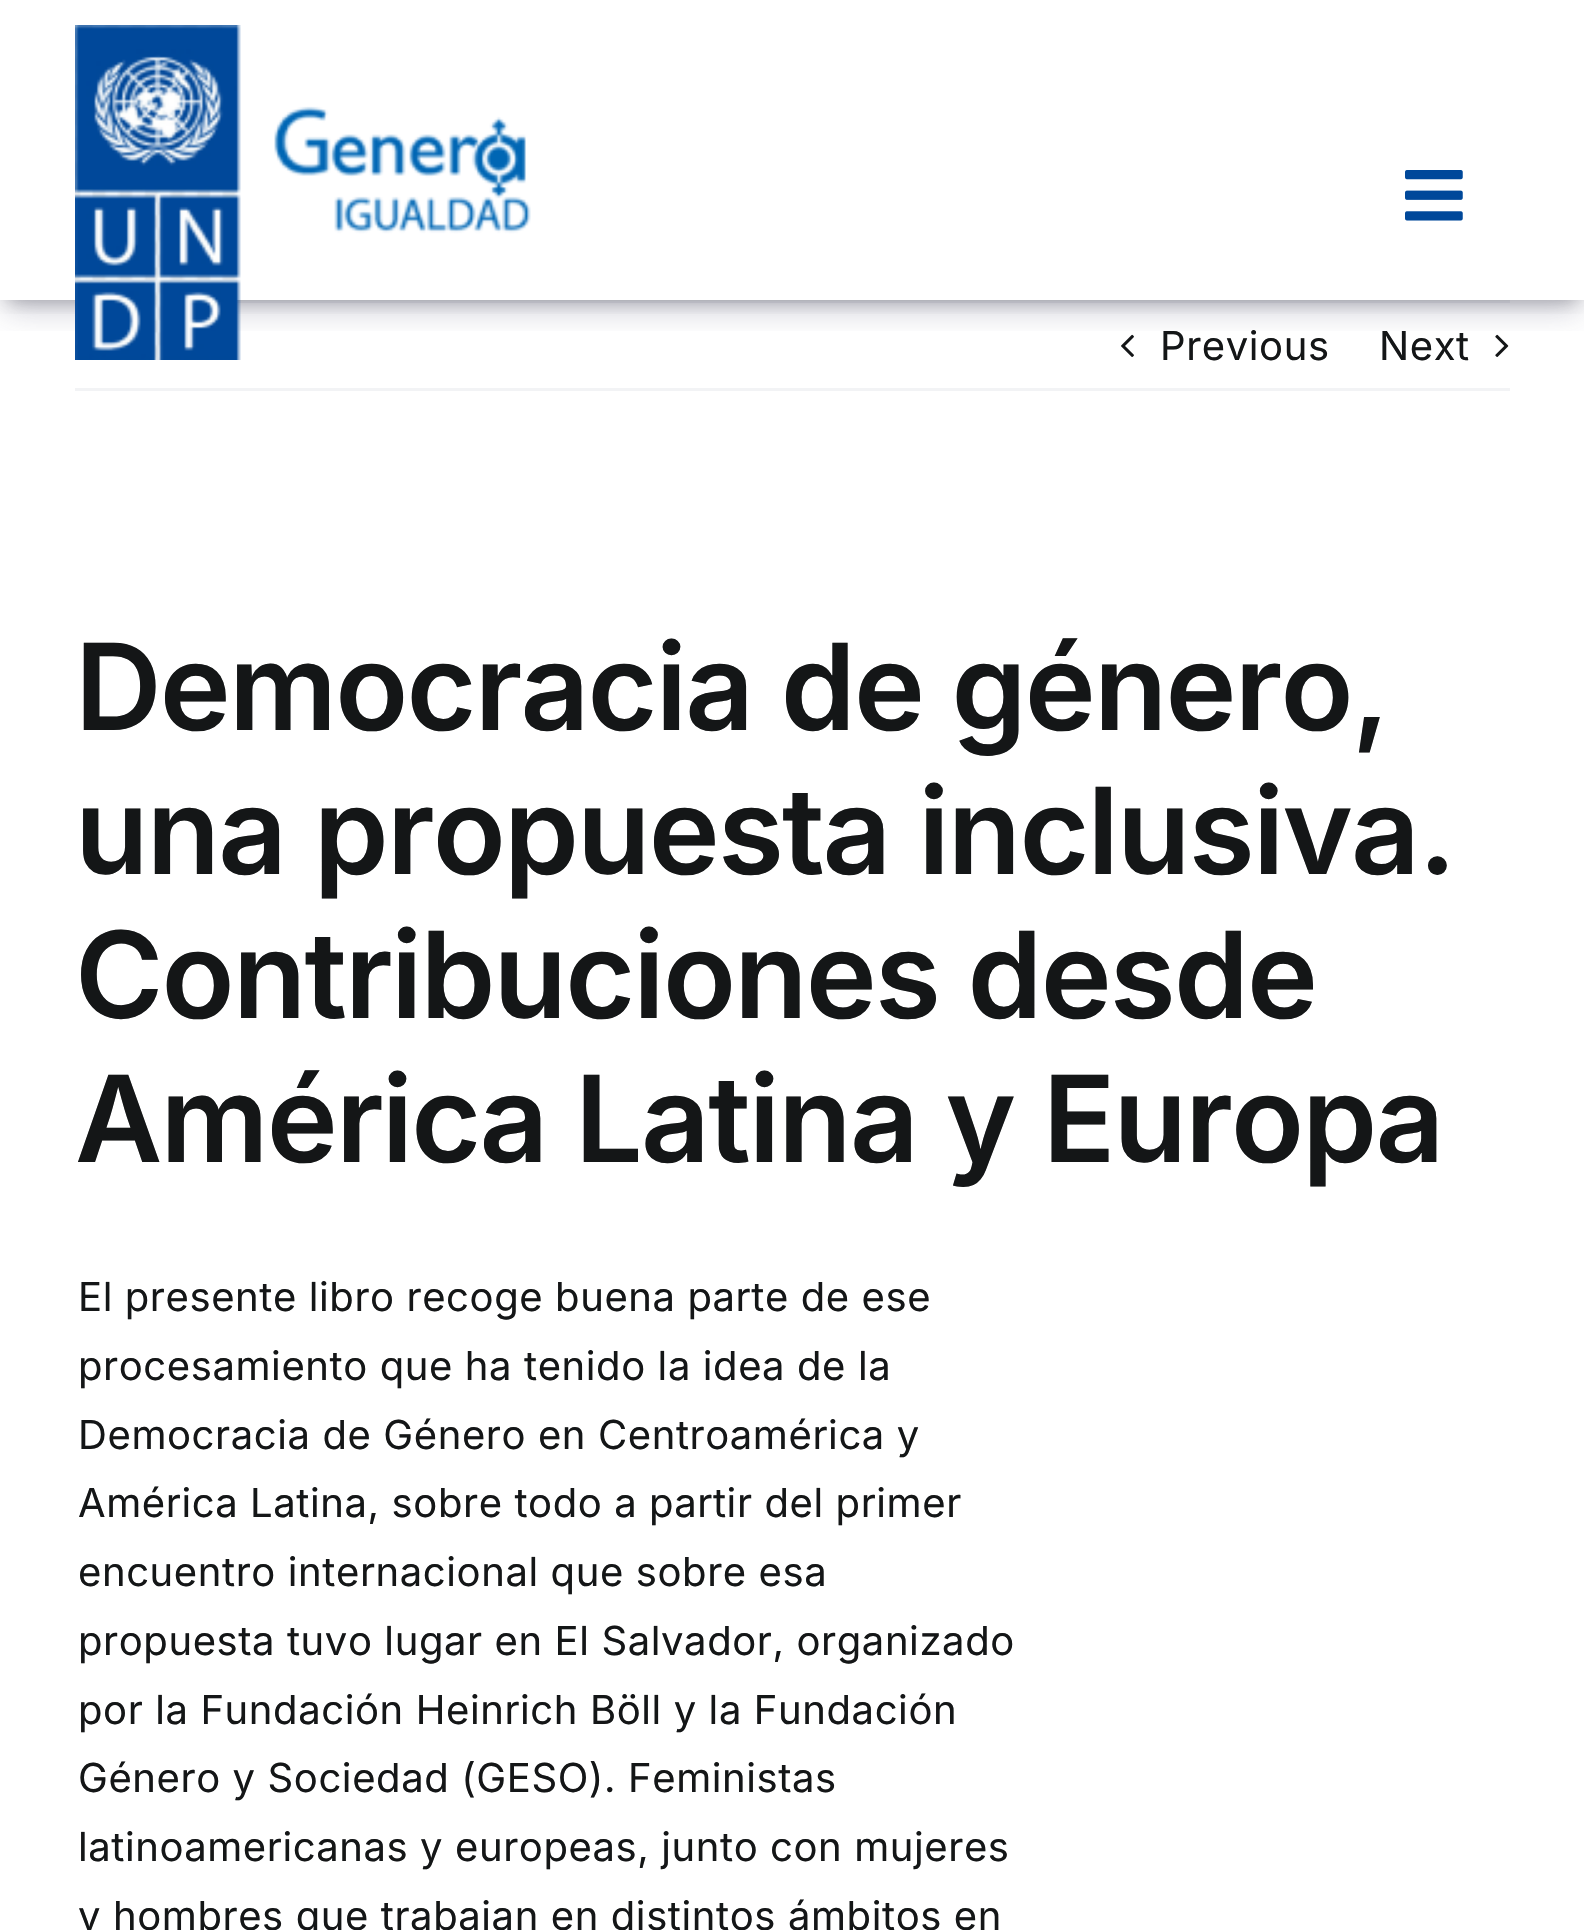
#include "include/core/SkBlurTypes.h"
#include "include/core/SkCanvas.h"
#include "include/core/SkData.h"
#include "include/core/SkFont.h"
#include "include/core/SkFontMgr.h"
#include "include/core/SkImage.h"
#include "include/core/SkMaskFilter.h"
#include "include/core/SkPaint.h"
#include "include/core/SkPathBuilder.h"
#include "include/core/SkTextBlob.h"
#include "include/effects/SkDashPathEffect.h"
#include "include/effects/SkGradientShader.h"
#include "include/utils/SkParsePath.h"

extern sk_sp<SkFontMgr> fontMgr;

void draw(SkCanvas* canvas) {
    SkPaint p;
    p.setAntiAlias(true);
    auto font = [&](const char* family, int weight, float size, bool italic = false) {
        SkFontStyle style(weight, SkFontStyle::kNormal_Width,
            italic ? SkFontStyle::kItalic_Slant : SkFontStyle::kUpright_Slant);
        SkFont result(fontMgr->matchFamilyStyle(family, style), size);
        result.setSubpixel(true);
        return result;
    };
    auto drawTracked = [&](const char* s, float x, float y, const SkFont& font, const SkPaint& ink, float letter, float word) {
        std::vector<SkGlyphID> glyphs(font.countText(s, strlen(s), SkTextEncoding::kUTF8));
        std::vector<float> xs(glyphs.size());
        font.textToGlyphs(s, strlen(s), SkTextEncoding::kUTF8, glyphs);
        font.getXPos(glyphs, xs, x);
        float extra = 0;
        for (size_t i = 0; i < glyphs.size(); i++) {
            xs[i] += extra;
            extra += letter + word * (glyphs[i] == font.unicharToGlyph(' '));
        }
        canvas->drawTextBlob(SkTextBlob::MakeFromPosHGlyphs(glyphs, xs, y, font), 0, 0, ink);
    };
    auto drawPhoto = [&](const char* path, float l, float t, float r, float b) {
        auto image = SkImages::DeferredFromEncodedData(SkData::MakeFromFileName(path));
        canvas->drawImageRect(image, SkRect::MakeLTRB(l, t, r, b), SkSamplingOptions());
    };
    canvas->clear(0xFFFFFFFF);
    p.setColor(0xFFF2F3F5);
    canvas->drawRect(SkRect::MakeLTRB(236, 300, 1510, 303), p);
    canvas->save();
    canvas->clipRect(SkRect::MakeLTRB(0, 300, 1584, 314));
    p.setColor(0x4D000000);
    p.setMaskFilter(SkMaskFilter::MakeBlur(kNormal_SkBlurStyle, 9));
    canvas->drawRect(SkRect::MakeLTRB(8, 15, 1578, 300), p);
    p.setMaskFilter(nullptr);
    canvas->restore();
    drawPhoto("media/3.png", 1121, 334, 1134, 357);
    drawPhoto("media/4.png", 1495, 334, 1509, 357);
    canvas->save();
    canvas->clipRect(SkRect::MakeLTRB(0, 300, 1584, 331));
    p.setColor(0x4032325D);
    p.setMaskFilter(SkMaskFilter::MakeBlur(kNormal_SkBlurStyle, 15));
    canvas->drawRect(SkRect::MakeLTRB(5, 20, 1580, 310), p);
    p.setMaskFilter(nullptr);
    canvas->restore();
    drawPhoto("media/1.png", 75, 25, 531, 360);
    drawPhoto("media/2.png", 1405, 170, 1463, 221);
    p.setColor(0xFFF2F3F5);
    canvas->drawRect(SkRect::MakeLTRB(75, 388, 1510, 391), p);
    auto font1 = font("Inter", 400, 40);
    p.setColor(0xFF141617);
    drawTracked("Previous", 1160, 360, font1, p, 0.6f, 0);
    drawTracked("Next", 1379, 360, font1, p, 0.6f, 0);
    auto font2 = font("Inter", 600, 120);
    {
        const struct { const char* s; float x, y; } items[] = {
            {"Democracia de género,", 75, 730},
            {"una propuesta inclusiva.", 75, 874},
            {"Contribuciones desde", 75, 1018},
            {"América Latina y Europa", 75, 1162},
        };
        for (auto [s, x, y] : items) {
            drawTracked(s, x, y, font2, p, -1.8f, 0);
        }
    }
    {
        const struct { const char* s; float x, y; } items[] = {
            {"El presente libro recoge buena parte de ese", 78, 1311},
            {"procesamiento que ha tenido la idea de la", 78, 1380},
            {"Democracia de Género en Centroamérica y", 78, 1449},
            {"América Latina, sobre todo a partir del primer", 78, 1517},
            {"encuentro internacional que sobre esa", 78, 1586},
            {"propuesta tuvo lugar en El Salvador, organizado", 78, 1655},
            {"por la Fundación Heinrich Böll y la Fundación", 78, 1724},
            {"Género y Sociedad (GESO). Feministas", 78, 1792},
            {"latinoamericanas y europeas, junto con mujeres", 78, 1861},
            {"y hombres que trabajan en distintos ámbitos en", 78, 1930},
        };
        for (auto [s, x, y] : items) {
            drawTracked(s, x, y, font1, p, 0.6f, 0);
        }
    }
}
